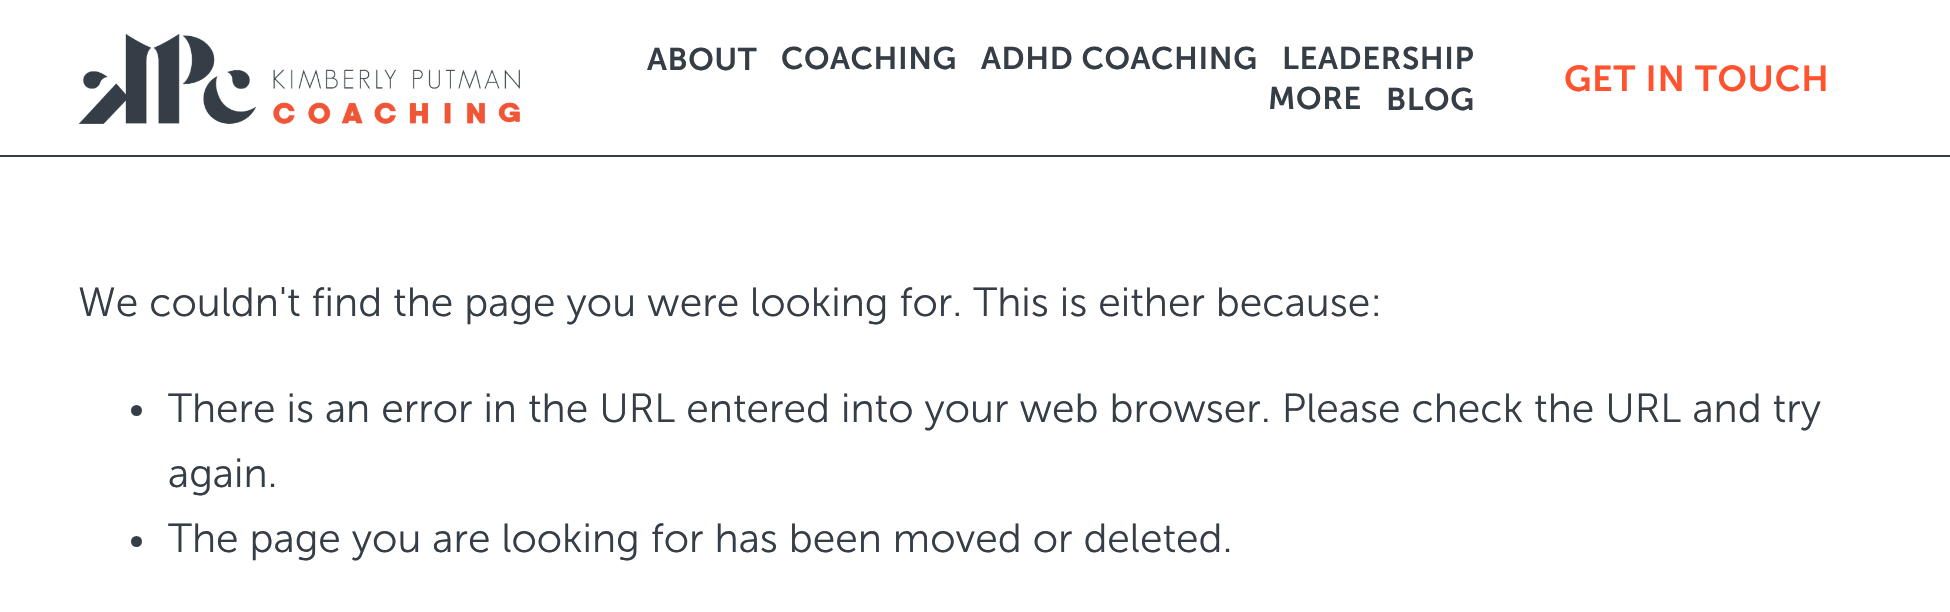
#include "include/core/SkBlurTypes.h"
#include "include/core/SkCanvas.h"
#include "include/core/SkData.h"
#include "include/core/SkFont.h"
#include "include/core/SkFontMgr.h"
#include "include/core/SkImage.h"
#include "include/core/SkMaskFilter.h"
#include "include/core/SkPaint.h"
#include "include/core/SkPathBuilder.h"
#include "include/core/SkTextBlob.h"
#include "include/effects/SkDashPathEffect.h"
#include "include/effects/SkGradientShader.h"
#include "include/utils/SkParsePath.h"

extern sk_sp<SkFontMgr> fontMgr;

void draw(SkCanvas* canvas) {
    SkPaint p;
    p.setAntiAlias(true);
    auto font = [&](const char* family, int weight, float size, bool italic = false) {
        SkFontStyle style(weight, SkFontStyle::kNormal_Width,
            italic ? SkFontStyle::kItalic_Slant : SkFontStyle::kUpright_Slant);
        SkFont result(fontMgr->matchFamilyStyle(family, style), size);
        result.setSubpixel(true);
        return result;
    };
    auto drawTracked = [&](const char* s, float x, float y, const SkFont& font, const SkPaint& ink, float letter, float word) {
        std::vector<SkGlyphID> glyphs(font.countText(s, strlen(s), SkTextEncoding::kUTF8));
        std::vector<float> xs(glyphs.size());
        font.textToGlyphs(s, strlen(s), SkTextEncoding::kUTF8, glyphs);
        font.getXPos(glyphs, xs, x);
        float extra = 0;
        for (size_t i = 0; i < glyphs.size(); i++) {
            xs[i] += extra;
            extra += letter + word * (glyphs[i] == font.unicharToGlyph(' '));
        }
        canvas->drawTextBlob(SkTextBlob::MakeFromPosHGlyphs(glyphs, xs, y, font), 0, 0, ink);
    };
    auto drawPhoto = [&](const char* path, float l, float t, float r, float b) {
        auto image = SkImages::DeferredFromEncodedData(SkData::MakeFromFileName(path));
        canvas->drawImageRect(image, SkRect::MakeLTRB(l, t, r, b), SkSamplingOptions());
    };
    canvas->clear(0xFFFFFFFF);
    drawPhoto("media/1.png", 78, 33, 520, 124);
    auto font1 = font("Museo Sans", 600, 31.25f);
    p.setColor(0xFF353E46);
    {
        const struct { const char* s; float x, y; } items[] = {
            {"ABOUT", 647, 70},
            {"COACHING", 781, 69},
            {"ADHD COACHING", 981, 69},
            {"LEADERSHIP", 1282, 69},
            {"MORE", 1268, 109},
            {"BLOG", 1386, 110},
        };
        for (auto [s, x, y] : items) {
            drawTracked(s, x, y, font1, p, 0.6f, 0);
        }
    }
    auto font2 = font("Museo Sans", 600, 36);
    p.setColor(0xFFFF532F);
    drawTracked("GET IN TOUCH", 1564, 91, font2, p, 0.75f, 0);
    p.setColor(0xFF353E46);
    canvas->drawRect(SkRect::MakeLTRB(0, 155, 1950, 157), p);
    auto font3 = font("Museo Sans", 300, 40.7f);
    canvas->drawString("We couldn't find the page you were looking for. This is either because:", 78, 316, font3, p);
    canvas->drawCircle(136.5f, 410.5f, 5.5f, p);
    canvas->drawString("There is an error in the URL entered into your web browser. Please check the URL and try", 168, 422, font3, p);
    canvas->drawString("again.", 168, 487, font3, p);
    canvas->drawCircle(136.5f, 541.5f, 5.5f, p);
    canvas->drawString("The page you are looking for has been moved or deleted.", 168, 552, font3, p);
}
